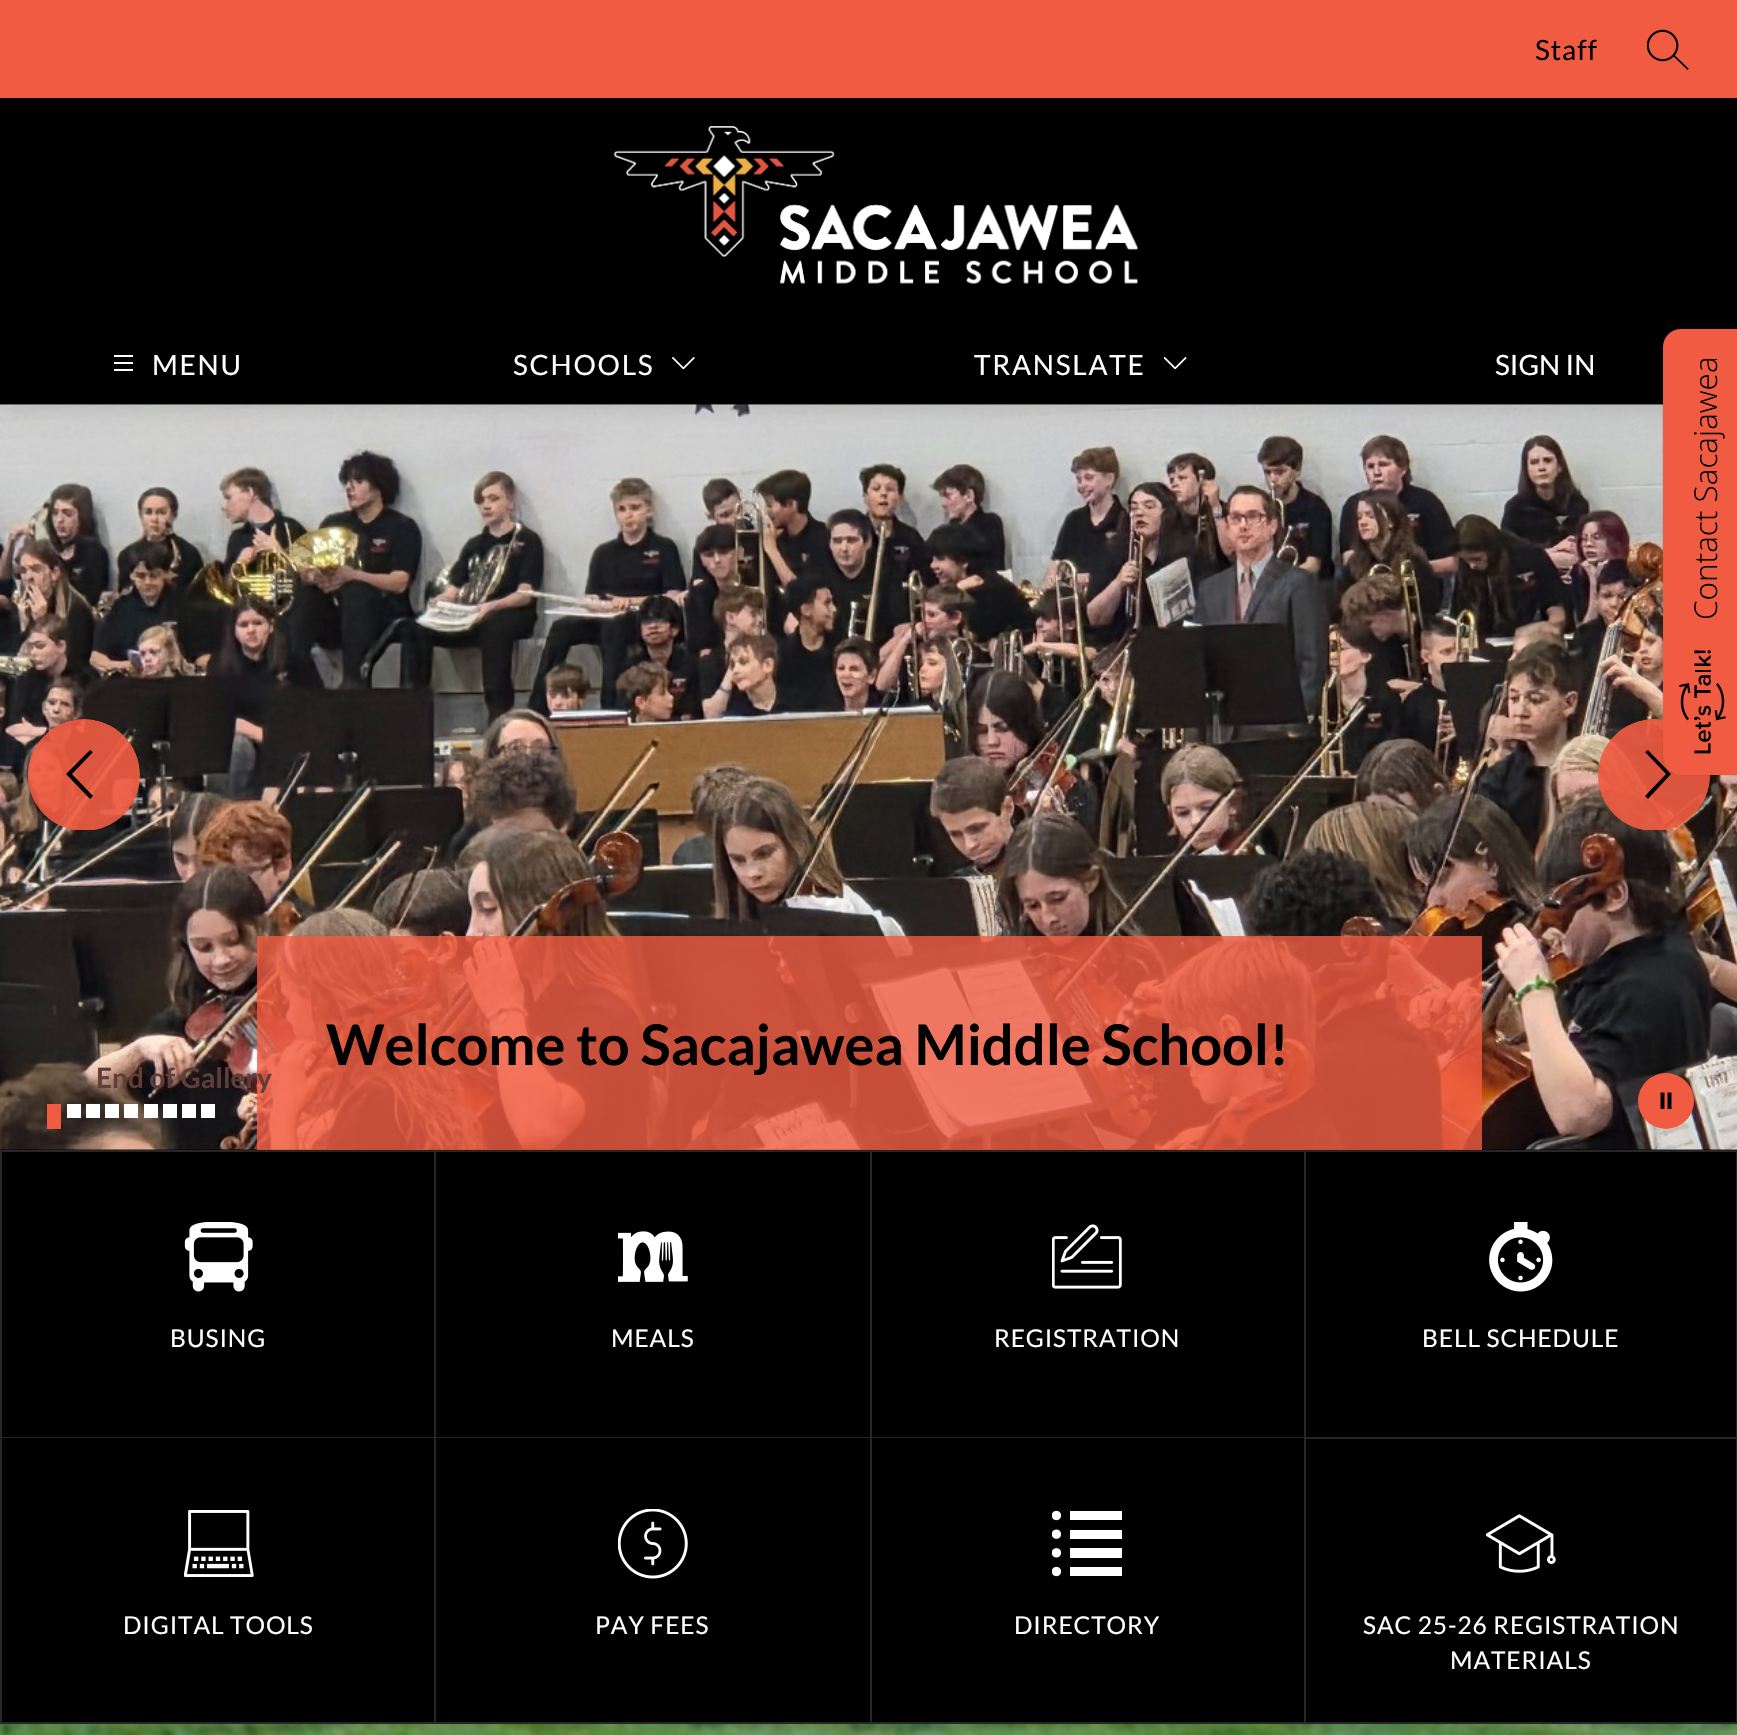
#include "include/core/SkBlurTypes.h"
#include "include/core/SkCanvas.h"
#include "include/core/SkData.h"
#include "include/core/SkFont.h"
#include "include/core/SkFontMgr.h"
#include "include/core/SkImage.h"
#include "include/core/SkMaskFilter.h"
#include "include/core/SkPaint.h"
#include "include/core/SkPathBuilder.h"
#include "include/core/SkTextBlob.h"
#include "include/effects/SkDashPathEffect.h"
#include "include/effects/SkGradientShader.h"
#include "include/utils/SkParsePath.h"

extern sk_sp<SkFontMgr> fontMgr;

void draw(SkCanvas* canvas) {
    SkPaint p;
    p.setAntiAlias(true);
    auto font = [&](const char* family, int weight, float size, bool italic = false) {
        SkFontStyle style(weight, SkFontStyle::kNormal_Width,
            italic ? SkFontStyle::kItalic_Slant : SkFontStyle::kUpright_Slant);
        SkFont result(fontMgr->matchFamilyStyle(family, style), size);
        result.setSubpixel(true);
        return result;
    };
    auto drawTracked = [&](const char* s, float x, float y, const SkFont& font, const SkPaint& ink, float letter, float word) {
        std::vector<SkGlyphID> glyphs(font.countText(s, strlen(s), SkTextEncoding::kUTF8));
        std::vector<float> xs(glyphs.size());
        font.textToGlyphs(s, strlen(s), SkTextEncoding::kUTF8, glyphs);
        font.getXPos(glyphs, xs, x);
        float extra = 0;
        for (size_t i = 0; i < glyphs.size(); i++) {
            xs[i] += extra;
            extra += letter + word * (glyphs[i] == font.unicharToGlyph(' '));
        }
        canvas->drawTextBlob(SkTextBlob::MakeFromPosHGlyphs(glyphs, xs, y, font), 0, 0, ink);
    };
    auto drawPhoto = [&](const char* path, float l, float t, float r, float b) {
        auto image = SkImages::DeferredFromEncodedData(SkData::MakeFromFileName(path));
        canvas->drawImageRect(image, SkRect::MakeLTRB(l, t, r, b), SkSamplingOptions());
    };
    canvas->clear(0xFF000000);
    drawPhoto("media/5.png", 0, 404, 1737, 1150);
    p.setColor(0x1A000000);
    p.setMaskFilter(SkMaskFilter::MakeBlur(kNormal_SkBlurStyle, 9));
    canvas->drawRect(SkRect::MakeLTRB(0, 7, 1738, 411), p);
    p.setMaskFilter(nullptr);
    p.setColor(0xFFF15B41);
    canvas->drawRect(SkRect::MakeLTRB(0, 0, 1737, 98), p);
    auto font1 = font("Lato", 400, 28);
    p.setColor(0xFF000000);
    drawTracked("Staff", 1535, 60, font1, p, 0.9f, 0);
    drawPhoto("media/1.png", 1647, 29, 1689, 70);
    drawPhoto("media/2.png", 614, 126, 1138, 284);
    p.setColor(0xFFFFFFFF);
    canvas->drawPath(SkPathBuilder(SkPathFillType::kEvenOdd).moveTo(114, 355).lineTo(133, 355).lineTo(133, 357).lineTo(114, 357).close().moveTo(114, 362).lineTo(133, 362).lineTo(133, 364).lineTo(114, 364).close().moveTo(133, 369).lineTo(114, 369).lineTo(114, 371).lineTo(133, 371).close().detach(), p);
    drawTracked("MENU", 152, 375, font1, p, 1.75f, 0);
    drawTracked("SCHOOLS", 513, 375, font1, p, 1.75f, 0);
    drawPhoto("media/3.png", 672, 357, 695, 370);
    drawTracked("TRANSLATE", 974, 375, font1, p, 1.75f, 0);
    drawPhoto("media/4.png", 1163, 357, 1187, 370);
    canvas->drawString("SIGN IN", 1495, 375, font1, p);
    canvas->save();
    canvas->clipPath(SkPathBuilder().moveTo(84, 719).cubicTo(115, 719, 140, 744, 140, 775).cubicTo(140, 806, 115, 831, 84, 831).cubicTo(53, 831, 28, 806, 28, 775).cubicTo(28, 744, 53, 719, 84, 719).close().detach(), true);
    p.setColor(0xE6F15B41);
    canvas->drawPath(SkPathBuilder().moveTo(84, 719).cubicTo(115, 719, 140, 744, 140, 775).lineTo(140, 830).lineTo(28, 830).lineTo(28, 775).cubicTo(28, 744, 53, 719, 84, 719).close().detach(), p);
    canvas->restore();
    p.setColor(0xFF000000);
    canvas->drawPath(SkPathBuilder(SkPathFillType::kEvenOdd).moveTo(72, 774).lineTo(93, 752).lineTo(90, 750).lineTo(66, 774).lineTo(90, 799).lineTo(93, 796).close().detach(), p);
    canvas->save();
    canvas->clipPath(SkPathBuilder().moveTo(1654, 719).cubicTo(1685, 719, 1710, 744, 1710, 775).cubicTo(1710, 806, 1685, 831, 1654, 831).cubicTo(1623, 831, 1598, 806, 1598, 775).cubicTo(1598, 744, 1623, 719, 1654, 719).close().detach(), true);
    p.setColor(0xE6F15B41);
    canvas->drawPath(SkPathBuilder().moveTo(1654, 719).cubicTo(1685, 719, 1710, 744, 1710, 775).lineTo(1710, 830).lineTo(1598, 830).lineTo(1598, 775).cubicTo(1598, 744, 1623, 719, 1654, 719).close().detach(), p);
    canvas->restore();
    p.setColor(0xFF000000);
    canvas->drawPath(SkPathBuilder(SkPathFillType::kEvenOdd).moveTo(1666, 774).lineTo(1645, 796).lineTo(1648, 799).lineTo(1671, 774).lineTo(1648, 750).lineTo(1645, 752).close().detach(), p);
    {
        const struct { float l, t, r, b; SkColor color; } items[] = {
            {47, 1104, 61, 1129, 0xFFF15B41},
            {67, 1104, 81, 1118, 0xFFFFFFFF},
            {86, 1104, 100, 1118, 0xFFFFFFFF},
            {105, 1104, 119, 1118, 0xFFFFFFFF},
            {124, 1104, 138, 1118, 0xFFFFFFFF},
            {144, 1104, 158, 1118, 0xFFFFFFFF},
            {163, 1104, 177, 1118, 0xFFFFFFFF},
            {182, 1104, 196, 1118, 0xFFFFFFFF},
            {201, 1104, 215, 1118, 0xFFFFFFFF},
        };
        for (auto [l, t, r, b, color] : items) {
            p.setColor(color);
            canvas->drawRect(SkRect::MakeLTRB(l, t, r, b), p);
        }
    }
    p.setColor(0xFFF15B41);
    canvas->drawCircle(1666, 1101, 28, p);
    p.setColor(0xFF000000);
    canvas->drawPath(SkPathBuilder(SkPathFillType::kEvenOdd).moveTo(1664.5f, 1092.5f).lineTo(1660.5f, 1092.5f).lineTo(1660.5f, 1109).lineTo(1664.5f, 1109).close().moveTo(1671.5f, 1092.5f).lineTo(1667.5f, 1092.5f).lineTo(1667.5f, 1109).lineTo(1671.5f, 1109).close().detach(), p);
    p.setColor(0xCCF15B41);
    canvas->drawRect(SkRect::MakeLTRB(257, 936, 1482, 1150), p);
    auto font2 = font("Lato", 700, 56);
    p.setColor(0xFF000000);
    canvas->drawString("Welcome to Sacajawea Middle School!", 326, 1065, font2, p);
    auto font3 = font("Lato", 700, 28);
    p.setColor(0xFF5D3E39);
    canvas->drawString("End of Gallery", 96, 1088, font3, p);
    p.setColor(0xFF262626);
    canvas->drawPath(SkPathBuilder().moveTo(0, 1150).lineTo(434, 1150).lineTo(434, 1152).lineTo(2, 1152).close().detach(), p);
    p.setColor(0x26FFFFFF);
    canvas->drawPath(SkPathBuilder().moveTo(0, 1437).lineTo(0, 1150).lineTo(2, 1152).lineTo(2, 1437).close().detach(), p);
    drawPhoto("media/6.png", 184, 1222, 253, 1292);
    auto font4 = font("Lato", 400, 24.5f);
    p.setColor(0xFFFFFFFF);
    drawTracked("BUSING", 170, 1347, font4, p, 0.9f, 0);
    p.setColor(0xFF262626);
    canvas->drawPath(SkPathBuilder().moveTo(434, 1150).lineTo(870, 1150).lineTo(870, 1152).lineTo(436, 1152).close().detach(), p);
    p.setColor(0x26FFFFFF);
    canvas->drawPath(SkPathBuilder().moveTo(434, 1437).lineTo(434, 1150).lineTo(436, 1152).lineTo(436, 1437).close().detach(), p);
    drawPhoto("media/7.png", 618, 1231, 688, 1282);
    p.setColor(0xFFFFFFFF);
    drawTracked("MEALS", 611, 1347, font4, p, 0.9f, 0);
    p.setColor(0xFF262626);
    canvas->drawPath(SkPathBuilder().moveTo(870, 1150).lineTo(1304, 1150).lineTo(1304, 1152).lineTo(872, 1152).close().detach(), p);
    p.setColor(0x26FFFFFF);
    canvas->drawPath(SkPathBuilder().moveTo(870, 1437).lineTo(870, 1150).lineTo(872, 1152).lineTo(872, 1437).close().detach(), p);
    drawPhoto("media/8.png", 1052, 1224, 1122, 1289);
    p.setColor(0xFFFFFFFF);
    drawTracked("REGISTRATION", 994, 1347, font4, p, 0.9f, 0);
    p.setColor(0xFF262626);
    canvas->drawPath(SkPathBuilder().moveTo(1304, 1150).lineTo(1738, 1150).lineTo(1736, 1152).lineTo(1306, 1152).close().detach(), p);
    p.setColor(0x26FFFFFF);
    canvas->drawPath(SkPathBuilder().moveTo(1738, 1150).lineTo(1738, 1437).lineTo(1736, 1437).lineTo(1736, 1152).close().detach(), p);
    canvas->drawPath(SkPathBuilder().moveTo(1304, 1437).lineTo(1304, 1150).lineTo(1306, 1152).lineTo(1306, 1437).close().detach(), p);
    drawPhoto("media/9.png", 1489, 1222, 1553, 1292);
    p.setColor(0xFFFFFFFF);
    drawTracked("BELL SCHEDULE", 1422, 1347, font4, p, 0.9f, 0);
    p.setColor(0xFF262626);
    canvas->drawPath(SkPathBuilder().moveTo(0, 1437).lineTo(434, 1437).lineTo(434, 1438).lineTo(2, 1438).close().detach(), p);
    canvas->drawPath(SkPathBuilder().moveTo(434, 1724).lineTo(0, 1724).lineTo(2, 1722).lineTo(434, 1722).close().detach(), p);
    p.setColor(0x26FFFFFF);
    canvas->drawPath(SkPathBuilder().moveTo(0, 1724).lineTo(0, 1437).lineTo(2, 1438).lineTo(2, 1722).close().detach(), p);
    drawPhoto("media/10.png", 184, 1510, 254, 1577);
    p.setColor(0xFFFFFFFF);
    drawTracked("DIGITAL TOOLS", 123, 1634, font4, p, 0.9f, 0);
    p.setColor(0xFF262626);
    canvas->drawPath(SkPathBuilder().moveTo(434, 1437).lineTo(870, 1437).lineTo(870, 1438).lineTo(436, 1438).close().detach(), p);
    canvas->drawPath(SkPathBuilder().moveTo(870, 1724).lineTo(434, 1724).lineTo(436, 1722).lineTo(870, 1722).close().detach(), p);
    p.setColor(0x26FFFFFF);
    canvas->drawPath(SkPathBuilder().moveTo(434, 1724).lineTo(434, 1437).lineTo(436, 1438).lineTo(436, 1722).close().detach(), p);
    drawPhoto("media/11.png", 618, 1509, 688, 1579);
    p.setColor(0xFFFFFFFF);
    drawTracked("PAY FEES", 595, 1634, font4, p, 0.9f, 0);
    p.setColor(0xFF262626);
    canvas->drawPath(SkPathBuilder().moveTo(870, 1437).lineTo(1304, 1437).lineTo(1304, 1438).lineTo(872, 1438).close().detach(), p);
    canvas->drawPath(SkPathBuilder().moveTo(1304, 1724).lineTo(870, 1724).lineTo(872, 1722).lineTo(1304, 1722).close().detach(), p);
    p.setColor(0x26FFFFFF);
    canvas->drawPath(SkPathBuilder().moveTo(870, 1724).lineTo(870, 1437).lineTo(872, 1438).lineTo(872, 1722).close().detach(), p);
    drawPhoto("media/12.png", 1052, 1510, 1122, 1577);
    p.setColor(0xFFFFFFFF);
    drawTracked("DIRECTORY", 1014, 1634, font4, p, 0.9f, 0);
    p.setStyle(SkPaint::kStroke_Style);
    p.setStrokeWidth(2);
    p.setColor(0xFF262626);
    canvas->drawRect(SkRect::MakeLTRB(1305, 1438, 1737, 1723), p);
    drawPhoto("media/13.png", 1486, 1514, 1556, 1573);
    p.setStyle(SkPaint::kFill_Style);
    p.setColor(0xFFFFFFFF);
    drawTracked("SAC 25-26 REGISTRATION", 1363, 1634, font4, p, 0.9f, 0);
    drawTracked("MATERIALS", 1450, 1669, font4, p, 0.9f, 0);
    drawPhoto("media/14.png", 0, 1724, 1737, 1735);
    p.setColor(0x38000000);
    p.setMaskFilter(SkMaskFilter::MakeBlur(kNormal_SkBlurStyle, 1));
    canvas->drawRoundRect(SkRect::MakeLTRB(1663, 329, 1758, 775), 18, 18, p);
    p.setMaskFilter(nullptr);
    p.setColor(0xFFF15B41);
    canvas->drawPath(SkPathBuilder().moveTo(1681, 329).lineTo(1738, 329).lineTo(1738, 775).lineTo(1681, 775).cubicTo(1671, 775, 1663, 767, 1663, 757).lineTo(1663, 347).cubicTo(1663, 337, 1671, 329, 1681, 329).close().detach(), p);
    auto font5 = font("Open Sans", 300, 31.5f);
    p.setColor(0xFF000000);
    canvas->save();
    canvas->rotate(-90, 1717, 620);
    canvas->drawString("Contact Sacajawea", 1717, 620, font5, p);
    canvas->restore();
    drawPhoto("media/15.png", 1679, 650, 1726, 754);
}
